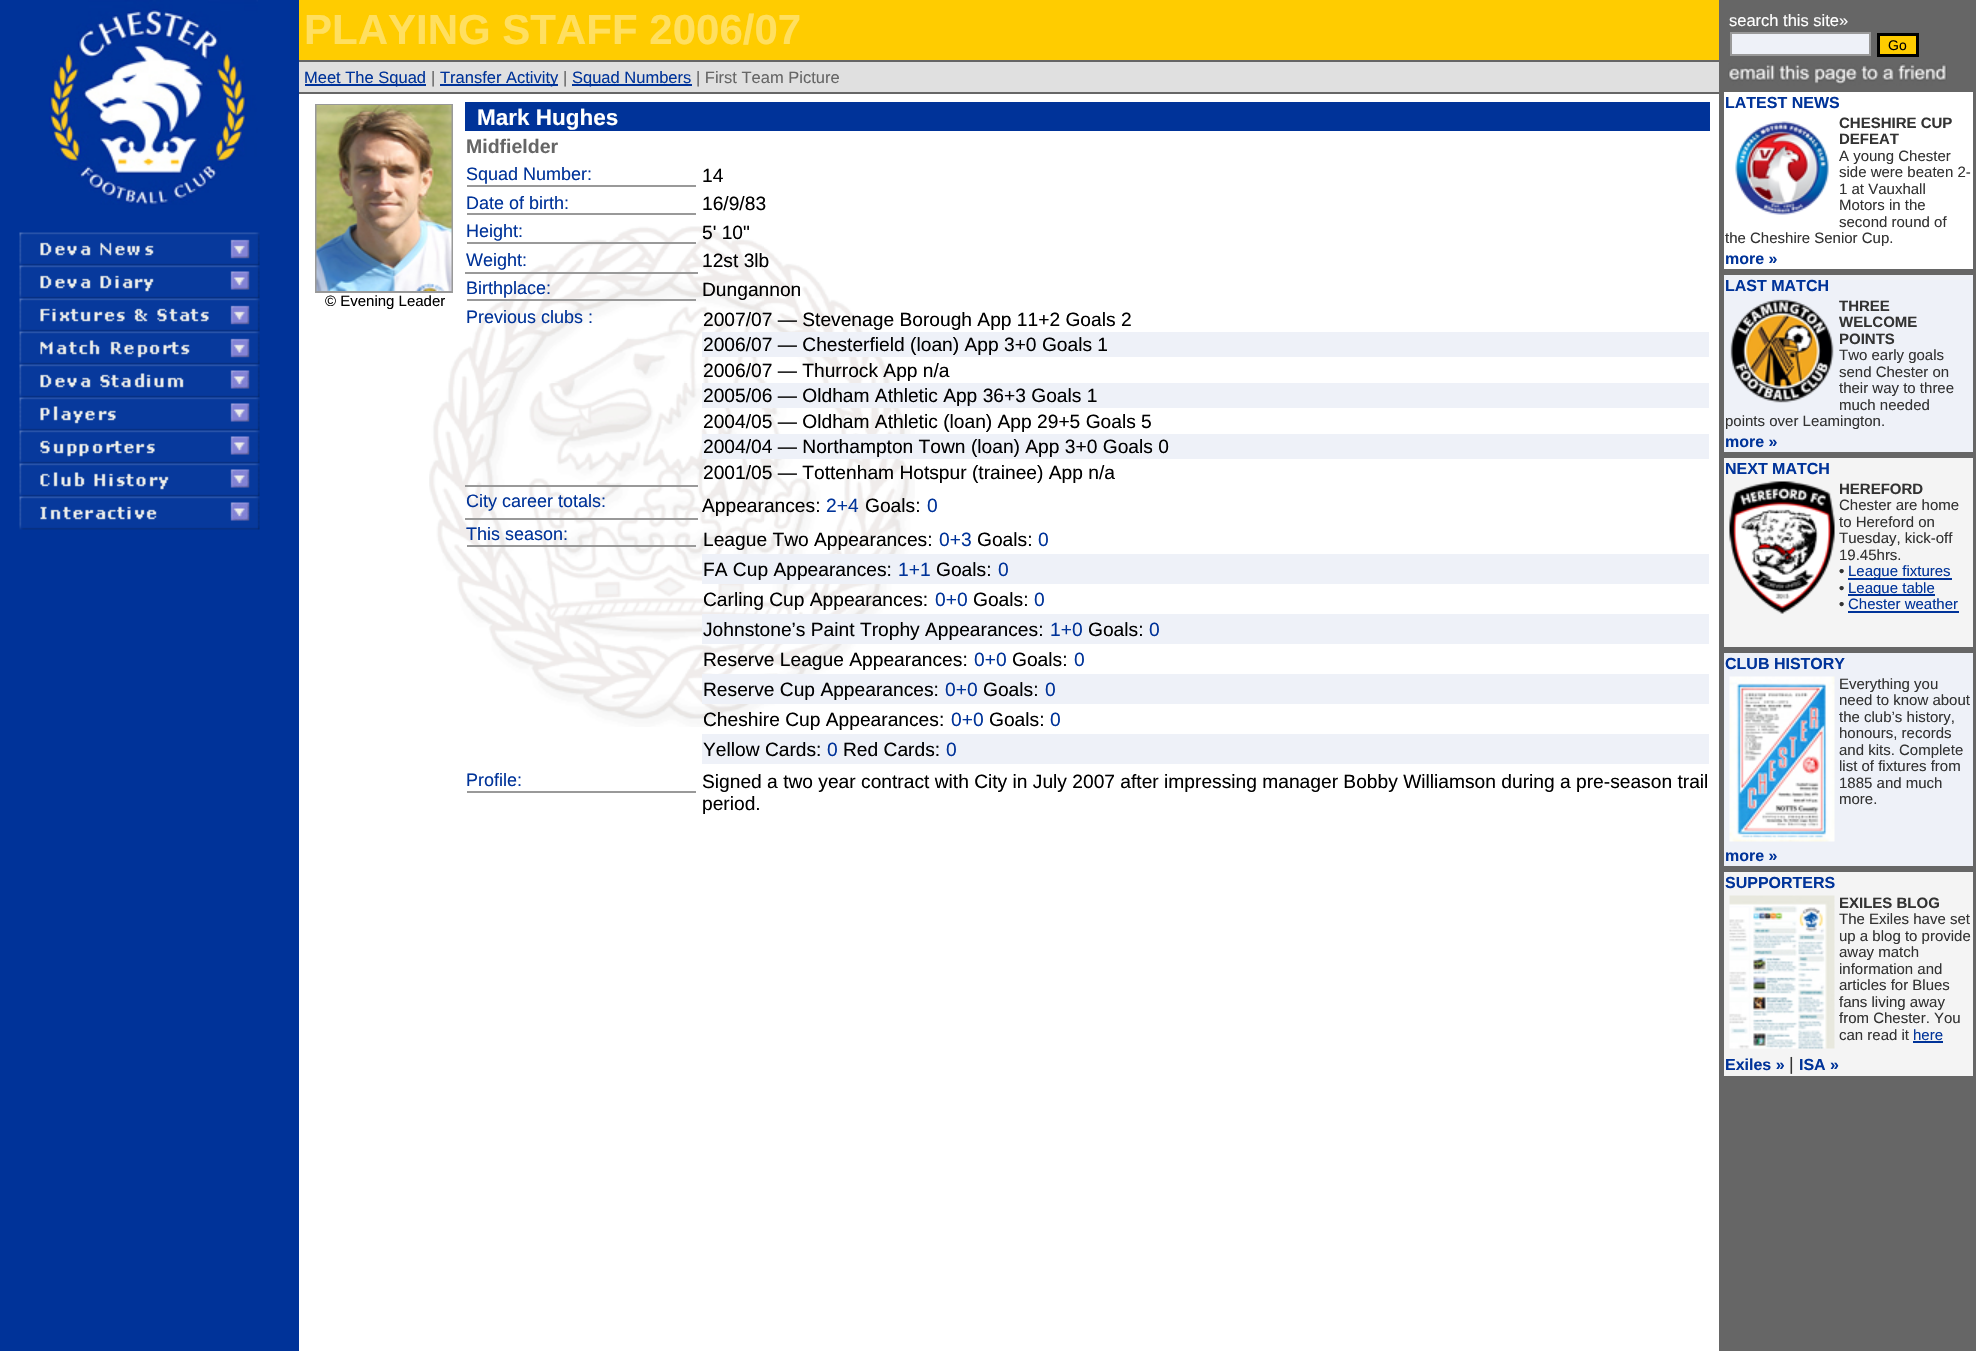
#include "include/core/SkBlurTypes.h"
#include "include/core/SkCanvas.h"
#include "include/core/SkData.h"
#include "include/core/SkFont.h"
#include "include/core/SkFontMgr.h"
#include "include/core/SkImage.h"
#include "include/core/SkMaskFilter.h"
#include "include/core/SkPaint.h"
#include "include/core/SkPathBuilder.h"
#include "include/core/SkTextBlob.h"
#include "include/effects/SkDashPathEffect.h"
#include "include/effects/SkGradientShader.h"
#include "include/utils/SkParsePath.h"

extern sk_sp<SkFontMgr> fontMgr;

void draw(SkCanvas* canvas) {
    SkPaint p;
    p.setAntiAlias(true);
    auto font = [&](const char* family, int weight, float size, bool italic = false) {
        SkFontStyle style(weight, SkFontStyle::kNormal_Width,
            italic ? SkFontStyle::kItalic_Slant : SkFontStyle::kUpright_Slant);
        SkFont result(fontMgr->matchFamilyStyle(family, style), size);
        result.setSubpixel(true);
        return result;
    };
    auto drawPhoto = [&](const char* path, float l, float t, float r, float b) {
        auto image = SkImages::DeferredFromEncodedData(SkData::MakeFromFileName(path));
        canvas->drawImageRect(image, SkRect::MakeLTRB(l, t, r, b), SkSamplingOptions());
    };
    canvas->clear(0xFFFFFFFF);
    drawPhoto("media/1.png", 429, 226, 915, 727);
    p.setColor(0xFF003399);
    canvas->drawRect(SkRect::MakeLTRB(0, 0, 299, 1351), p);
    drawPhoto("media/2.png", 19, 232, 260, 266);
    drawPhoto("media/3.png", 49, 0, 258, 206);
    p.setColor(0xFFFFCC00);
    canvas->drawRect(SkRect::MakeLTRB(299, 0, 1719, 60), p);
    p.setColor(0xFF666666);
    canvas->drawRect(SkRect::MakeLTRB(299, 60, 1719, 62), p);
    auto font1 = font("Liberation Sans", 700, 42);
    p.setColor(0xFFFFDF60);
    canvas->drawString("PLAYING STAFF 2006/07", 304, 44, font1, p);
    {
        const struct { float l, t, r, b; SkColor color; } items[] = {
            {299, 62, 1719, 92, 0xFFE0E0E0},
            {299, 92, 1719, 94, 0xFF666666},
            {305, 84, 426, 86, 0xFF003399},
        };
        for (auto [l, t, r, b, color] : items) {
            p.setColor(color);
            canvas->drawRect(SkRect::MakeLTRB(l, t, r, b), p);
        }
    }
    auto font2 = font("Liberation Sans", 400, 16.5f);
    canvas->drawString("Meet The Squad", 304, 83, font2, p);
    p.setColor(0xFF666666);
    canvas->drawString("|", 431, 83, font2, p);
    p.setColor(0xFF003399);
    canvas->drawRect(SkRect::MakeLTRB(440, 84, 558, 86), p);
    canvas->drawString("Transfer Activity", 440, 83, font2, p);
    p.setColor(0xFF666666);
    canvas->drawString("|", 563, 83, font2, p);
    p.setColor(0xFF003399);
    canvas->drawRect(SkRect::MakeLTRB(572, 84, 692, 86), p);
    canvas->drawString("Squad Numbers", 572, 83, font2, p);
    p.setColor(0xFF666666);
    canvas->drawString("| First Team Picture", 696, 83, font2, p);
    p.setColor(0xFF003399);
    canvas->drawRect(SkRect::MakeLTRB(465, 102, 1710, 131), p);
    auto font3 = font("Liberation Sans", 700, 22.5f);
    p.setColor(0xFFFFFFFF);
    canvas->drawString("Mark Hughes", 477, 125, font3, p);
    p.setStyle(SkPaint::kStroke_Style);
    p.setStrokeWidth(2);
    p.setColor(0xFF999999);
    canvas->drawRect(SkRect::MakeLTRB(316, 105, 452, 292), p);
    drawPhoto("media/4.png", 316, 105, 452, 291);
    auto font4 = font("Liberation Sans", 400, 15);
    p.setStyle(SkPaint::kFill_Style);
    p.setColor(0xFF000000);
    canvas->drawString("© Evening Leader", 325, 306, font4, p);
    auto font5 = font("Liberation Sans", 700, 19.5f);
    p.setColor(0xFF666666);
    canvas->drawString("Midfielder", 466, 153, font5, p);
    p.setColor(0xFF999999);
    canvas->drawRect(SkRect::MakeLTRB(467, 185, 696, 187), p);
    auto font6 = font("Liberation Sans", 400, 18);
    p.setColor(0xFF003399);
    canvas->drawString("Squad Number:", 466, 180, font6, p);
    auto font7 = font("Liberation Sans", 400, 19.2f);
    p.setColor(0xFF000000);
    canvas->drawString("14", 702, 182, font7, p);
    p.setColor(0xFF999999);
    canvas->drawRect(SkRect::MakeLTRB(467, 213, 696, 215), p);
    p.setColor(0xFF003399);
    canvas->drawString("Date of birth:", 466, 209, font6, p);
    p.setColor(0xFF000000);
    canvas->drawString("16/9/83", 702, 210, font7, p);
    p.setColor(0xFF999999);
    canvas->drawRect(SkRect::MakeLTRB(467, 242, 696, 244), p);
    p.setColor(0xFF003399);
    canvas->drawString("Height:", 466, 237, font6, p);
    p.setColor(0xFF000000);
    canvas->drawString("5' 10\"", 702, 239, font7, p);
    p.setColor(0xFF999999);
    canvas->drawRect(SkRect::MakeLTRB(465, 272, 698, 274), p);
    p.setColor(0xFF003399);
    canvas->drawString("Weight:", 466, 266, font6, p);
    p.setColor(0xFF000000);
    canvas->drawString("12st 3lb", 702, 267, font7, p);
    p.setColor(0xFF999999);
    canvas->drawRect(SkRect::MakeLTRB(467, 299, 696, 301), p);
    p.setColor(0xFF003399);
    canvas->drawString("Birthplace:", 466, 294, font6, p);
    p.setColor(0xFF000000);
    canvas->drawString("Dungannon", 702, 296, font7, p);
    p.setColor(0xFF999999);
    canvas->drawRect(SkRect::MakeLTRB(465, 485, 698, 487), p);
    p.setColor(0xFF003399);
    canvas->drawString("Previous clubs :", 466, 323, font6, p);
    p.setColor(0xFF000000);
    canvas->drawString("2007/07 — Stevenage Borough App 11+2 Goals 2", 703, 326, font7, p);
    p.setColor(0xFFEEF1F8);
    canvas->drawRect(SkRect::MakeLTRB(702, 332, 1709, 357), p);
    p.setColor(0xFF000000);
    canvas->drawString("2006/07 — Chesterfield (loan) App 3+0 Goals 1", 703, 351, font7, p);
    canvas->drawString("2006/07 — Thurrock App n/a", 703, 377, font7, p);
    p.setColor(0xFFEEF1F8);
    canvas->drawRect(SkRect::MakeLTRB(702, 383, 1709, 408), p);
    p.setColor(0xFF000000);
    canvas->drawString("2005/06 — Oldham Athletic App 36+3 Goals 1", 703, 402, font7, p);
    canvas->drawString("2004/05 — Oldham Athletic (loan) App 29+5 Goals 5", 703, 428, font7, p);
    p.setColor(0xFFEEF1F8);
    canvas->drawRect(SkRect::MakeLTRB(702, 434, 1709, 459), p);
    p.setColor(0xFF000000);
    canvas->drawString("2004/04 — Northampton Town (loan) App 3+0 Goals 0", 703, 453, font7, p);
    canvas->drawString("2001/05 — Tottenham Hotspur (trainee) App n/a", 703, 479, font7, p);
    p.setColor(0xFF999999);
    canvas->drawRect(SkRect::MakeLTRB(465, 518, 698, 520), p);
    p.setColor(0xFF003399);
    canvas->drawString("City career totals:", 466, 507, font6, p);
    p.setColor(0xFF000000);
    canvas->drawString("Appearances:", 702, 512, font7, p);
    p.setColor(0xFF003399);
    canvas->drawString("2+4", 826, 512, font7, p);
    p.setColor(0xFF000000);
    canvas->drawString("Goals:", 865, 512, font7, p);
    p.setColor(0xFF003399);
    canvas->drawString("0", 927, 512, font7, p);
    p.setColor(0xFF999999);
    canvas->drawRect(SkRect::MakeLTRB(467, 545, 696, 547), p);
    p.setColor(0xFF003399);
    canvas->drawString("This season:", 466, 540, font6, p);
    p.setColor(0xFF000000);
    canvas->drawString("League Two Appearances:", 703, 546, font7, p);
    p.setColor(0xFF003399);
    canvas->drawString("0+3", 939, 546, font7, p);
    p.setColor(0xFF000000);
    canvas->drawString("Goals:", 977, 546, font7, p);
    p.setColor(0xFF003399);
    canvas->drawString("0", 1038, 546, font7, p);
    p.setColor(0xFFEEF1F8);
    canvas->drawRect(SkRect::MakeLTRB(702, 554, 1709, 584), p);
    p.setColor(0xFF000000);
    canvas->drawString("FA Cup Appearances:", 703, 576, font7, p);
    p.setColor(0xFF003399);
    canvas->drawString("1+1", 898, 576, font7, p);
    p.setColor(0xFF000000);
    canvas->drawString("Goals:", 936, 576, font7, p);
    p.setColor(0xFF003399);
    canvas->drawString("0", 998, 576, font7, p);
    p.setColor(0xFF000000);
    canvas->drawString("Carling Cup Appearances:", 703, 606, font7, p);
    p.setColor(0xFF003399);
    canvas->drawString("0+0", 935, 606, font7, p);
    p.setColor(0xFF000000);
    canvas->drawString("Goals:", 973, 606, font7, p);
    p.setColor(0xFF003399);
    canvas->drawString("0", 1034, 606, font7, p);
    p.setColor(0xFFEEF1F8);
    canvas->drawRect(SkRect::MakeLTRB(702, 614, 1709, 644), p);
    p.setColor(0xFF000000);
    canvas->drawString("Johnstone’s Paint Trophy Appearances:", 703, 636, font7, p);
    p.setColor(0xFF003399);
    canvas->drawString("1+0", 1050, 636, font7, p);
    p.setColor(0xFF000000);
    canvas->drawString("Goals:", 1088, 636, font7, p);
    p.setColor(0xFF003399);
    canvas->drawString("0", 1149, 636, font7, p);
    p.setColor(0xFF000000);
    canvas->drawString("Reserve League Appearances:", 703, 666, font7, p);
    p.setColor(0xFF003399);
    canvas->drawString("0+0", 974, 666, font7, p);
    p.setColor(0xFF000000);
    canvas->drawString("Goals:", 1012, 666, font7, p);
    p.setColor(0xFF003399);
    canvas->drawString("0", 1074, 666, font7, p);
    p.setColor(0xFFEEF1F8);
    canvas->drawRect(SkRect::MakeLTRB(702, 674, 1709, 704), p);
    p.setColor(0xFF000000);
    canvas->drawString("Reserve Cup Appearances:", 703, 696, font7, p);
    p.setColor(0xFF003399);
    canvas->drawString("0+0", 945, 696, font7, p);
    p.setColor(0xFF000000);
    canvas->drawString("Goals:", 983, 696, font7, p);
    p.setColor(0xFF003399);
    canvas->drawString("0", 1045, 696, font7, p);
    p.setColor(0xFF000000);
    canvas->drawString("Cheshire Cup Appearances:", 703, 726, font7, p);
    p.setColor(0xFF003399);
    canvas->drawString("0+0", 951, 726, font7, p);
    p.setColor(0xFF000000);
    canvas->drawString("Goals:", 989, 726, font7, p);
    p.setColor(0xFF003399);
    canvas->drawString("0", 1050, 726, font7, p);
    p.setColor(0xFFEEF1F8);
    canvas->drawRect(SkRect::MakeLTRB(702, 734, 1709, 764), p);
    p.setColor(0xFF000000);
    canvas->drawString("Yellow Cards:", 703, 756, font7, p);
    p.setColor(0xFF003399);
    canvas->drawString("0", 827, 756, font7, p);
    p.setColor(0xFF000000);
    canvas->drawString("Red Cards:", 843, 756, font7, p);
    p.setColor(0xFF003399);
    canvas->drawString("0", 946, 756, font7, p);
    p.setColor(0xFF999999);
    canvas->drawRect(SkRect::MakeLTRB(467, 791, 696, 793), p);
    p.setColor(0xFF003399);
    canvas->drawString("Profile:", 466, 786, font6, p);
    p.setColor(0xFF000000);
    canvas->drawString("Signed a two year contract with City in July 2007 after impressing manager Bobby Williamson during a pre-season trail", 702, 788, font7, p);
    canvas->drawString("period.", 702, 810, font7, p);
    p.setColor(0xFF666666);
    canvas->drawRect(SkRect::MakeLTRB(1719, 0, 1976, 1351), p);
    p.setColor(0xFFFFFFFF);
    canvas->drawString("search this site»", 1729, 26, font2, p);
    p.setColor(0xFFEEF1F8);
    canvas->drawRect(SkRect::MakeLTRB(1731, 33, 1870, 55), p);
    p.setStyle(SkPaint::kStroke_Style);
    p.setColor(0xFF999999);
    canvas->drawRect(SkRect::MakeLTRB(1731, 33, 1870, 55), p);
    p.setStyle(SkPaint::kFill_Style);
    p.setColor(0xFFFFCC00);
    canvas->drawRect(SkRect::MakeLTRB(1878.5f, 34.5f, 1917.5f, 55.5f), p);
    p.setStyle(SkPaint::kStroke_Style);
    p.setStrokeWidth(3);
    p.setColor(0xFF000000);
    canvas->drawRect(SkRect::MakeLTRB(1878.5f, 34.5f, 1917.5f, 55.5f), p);
    auto font8 = font("Liberation Sans", 400, 14);
    p.setStyle(SkPaint::kFill_Style);
    canvas->drawString("Go", 1888, 50, font8, p);
    drawPhoto("media/5.png", 1728, 63, 1947, 86);
    p.setColor(0xFFFFFFFF);
    canvas->drawRect(SkRect::MakeLTRB(1724, 92, 1973, 269), p);
    auto font9 = font("Liberation Sans", 700, 16);
    p.setColor(0xFF003399);
    canvas->drawString("LATEST NEWS", 1725, 108, font9, p);
    drawPhoto("media/6.png", 1735, 121, 1829, 215);
    auto font10 = font("Liberation Sans", 700, 15);
    p.setColor(0xFF333333);
    canvas->drawString("CHESHIRE CUP", 1839, 128, font10, p);
    canvas->drawString("DEFEAT", 1839, 144, font10, p);
    {
        const struct { const char* s; float x, y; } items[] = {
            {"A young Chester", 1839, 161},
            {"side were beaten 2-", 1839, 177},
            {"1 at Vauxhall", 1839, 194},
            {"Motors in the", 1839, 210},
            {"second round of", 1839, 227},
            {"the Cheshire Senior Cup.", 1725, 243},
        };
        for (auto [s, x, y] : items) {
            canvas->drawString(s, x, y, font4, p);
        }
    }
    p.setColor(0xFF003399);
    canvas->drawString("more »", 1725, 264, font9, p);
    p.setColor(0xFFEEF1F8);
    canvas->drawRect(SkRect::MakeLTRB(1724, 275, 1973, 452), p);
    p.setColor(0xFF003399);
    canvas->drawString("LAST MATCH", 1725, 291, font9, p);
    drawPhoto("media/7.png", 1730, 299, 1834, 403);
    p.setColor(0xFF333333);
    {
        const struct { const char* s; float x, y; } items[] = {
            {"THREE", 1839, 311},
            {"WELCOME", 1839, 327},
            {"POINTS", 1839, 344},
        };
        for (auto [s, x, y] : items) {
            canvas->drawString(s, x, y, font10, p);
        }
    }
    {
        const struct { const char* s; float x, y; } items[] = {
            {"Two early goals", 1839, 360},
            {"send Chester on", 1839, 377},
            {"their way to three", 1839, 393},
            {"much needed", 1839, 410},
            {"points over Leamington.", 1725, 426},
        };
        for (auto [s, x, y] : items) {
            canvas->drawString(s, x, y, font4, p);
        }
    }
    p.setColor(0xFF003399);
    canvas->drawString("more »", 1725, 447, font9, p);
    p.setColor(0xFFF4F4F4);
    canvas->drawRect(SkRect::MakeLTRB(1724, 458, 1973, 647), p);
    p.setColor(0xFF003399);
    canvas->drawString("NEXT MATCH", 1725, 474, font9, p);
    drawPhoto("media/8.png", 1729, 481, 1835, 614);
    p.setColor(0xFF333333);
    canvas->drawString("HEREFORD", 1839, 494, font10, p);
    {
        const struct { const char* s; float x, y; } items[] = {
            {"Chester are home", 1839, 510},
            {"to Hereford on", 1839, 527},
            {"Tuesday, kick-off", 1839, 543},
            {"19.45hrs.", 1839, 560},
        };
        for (auto [s, x, y] : items) {
            canvas->drawString(s, x, y, font4, p);
        }
    }
    canvas->drawString("•", 1839, 576, font10, p);
    p.setColor(0xFF003399);
    canvas->drawRect(SkRect::MakeLTRB(1848, 578, 1952, 580), p);
    canvas->drawString("League fixtures", 1848, 576, font4, p);
    p.setColor(0xFF333333);
    canvas->drawString("•", 1839, 593, font10, p);
    p.setColor(0xFF003399);
    canvas->drawRect(SkRect::MakeLTRB(1848, 594, 1935, 596), p);
    canvas->drawString("League table", 1848, 593, font4, p);
    p.setColor(0xFF333333);
    canvas->drawString("•", 1839, 609, font10, p);
    p.setColor(0xFF003399);
    canvas->drawString("Chester weather", 1848, 609, font4, p);
    canvas->drawRect(SkRect::MakeLTRB(1848, 611, 1959, 613), p);
    p.setColor(0xFFEEF1F8);
    canvas->drawRect(SkRect::MakeLTRB(1724, 653, 1973, 866), p);
    p.setColor(0xFF003399);
    canvas->drawString("CLUB HISTORY", 1725, 669, font9, p);
    drawPhoto("media/9.png", 1729, 676, 1835, 842);
    p.setColor(0xFF333333);
    {
        const struct { const char* s; float x, y; } items[] = {
            {"Everything you", 1839, 689},
            {"need to know about", 1839, 705},
            {"the club’s history,", 1839, 722},
            {"honours, records", 1839, 738},
            {"and kits. Complete", 1839, 755},
            {"list of fixtures from", 1839, 771},
            {"1885 and much", 1839, 788},
            {"more.", 1839, 804},
        };
        for (auto [s, x, y] : items) {
            canvas->drawString(s, x, y, font4, p);
        }
    }
    p.setColor(0xFF003399);
    canvas->drawString("more »", 1725, 861, font9, p);
    p.setColor(0xFFF4F4F4);
    canvas->drawRect(SkRect::MakeLTRB(1724, 872, 1973, 1076), p);
    p.setColor(0xFF003399);
    canvas->drawString("SUPPORTERS", 1725, 888, font9, p);
    drawPhoto("media/10.png", 1729, 895, 1835, 1049);
    p.setColor(0xFF333333);
    canvas->drawString("EXILES BLOG", 1839, 908, font10, p);
    {
        const struct { const char* s; float x, y; } items[] = {
            {"The Exiles have set", 1839, 924},
            {"up a blog to provide", 1839, 941},
            {"away match", 1839, 957},
            {"information and", 1839, 974},
            {"articles for Blues", 1839, 990},
            {"fans living away", 1839, 1007},
            {"from Chester. You", 1839, 1023},
            {"can read it", 1839, 1040},
        };
        for (auto [s, x, y] : items) {
            canvas->drawString(s, x, y, font4, p);
        }
    }
    p.setColor(0xFF003399);
    canvas->drawString("here", 1913, 1040, font4, p);
    canvas->drawRect(SkRect::MakeLTRB(1913, 1041, 1943, 1043), p);
    canvas->drawString("Exiles »", 1725, 1070, font9, p);
    p.setColor(0xFF333333);
    canvas->drawString("|", 1789, 1070, font6, p);
    p.setColor(0xFF003399);
    canvas->drawString("ISA »", 1799, 1070, font9, p);
    drawPhoto("media/11.png", 19, 265, 260, 299);
    drawPhoto("media/12.png", 19, 298, 260, 332);
    drawPhoto("media/13.png", 19, 331, 260, 365);
    drawPhoto("media/14.png", 19, 364, 260, 398);
    drawPhoto("media/15.png", 19, 397, 260, 431);
    drawPhoto("media/16.png", 19, 430, 260, 464);
    drawPhoto("media/17.png", 19, 463, 260, 497);
    drawPhoto("media/18.png", 19, 496, 260, 530);
}
